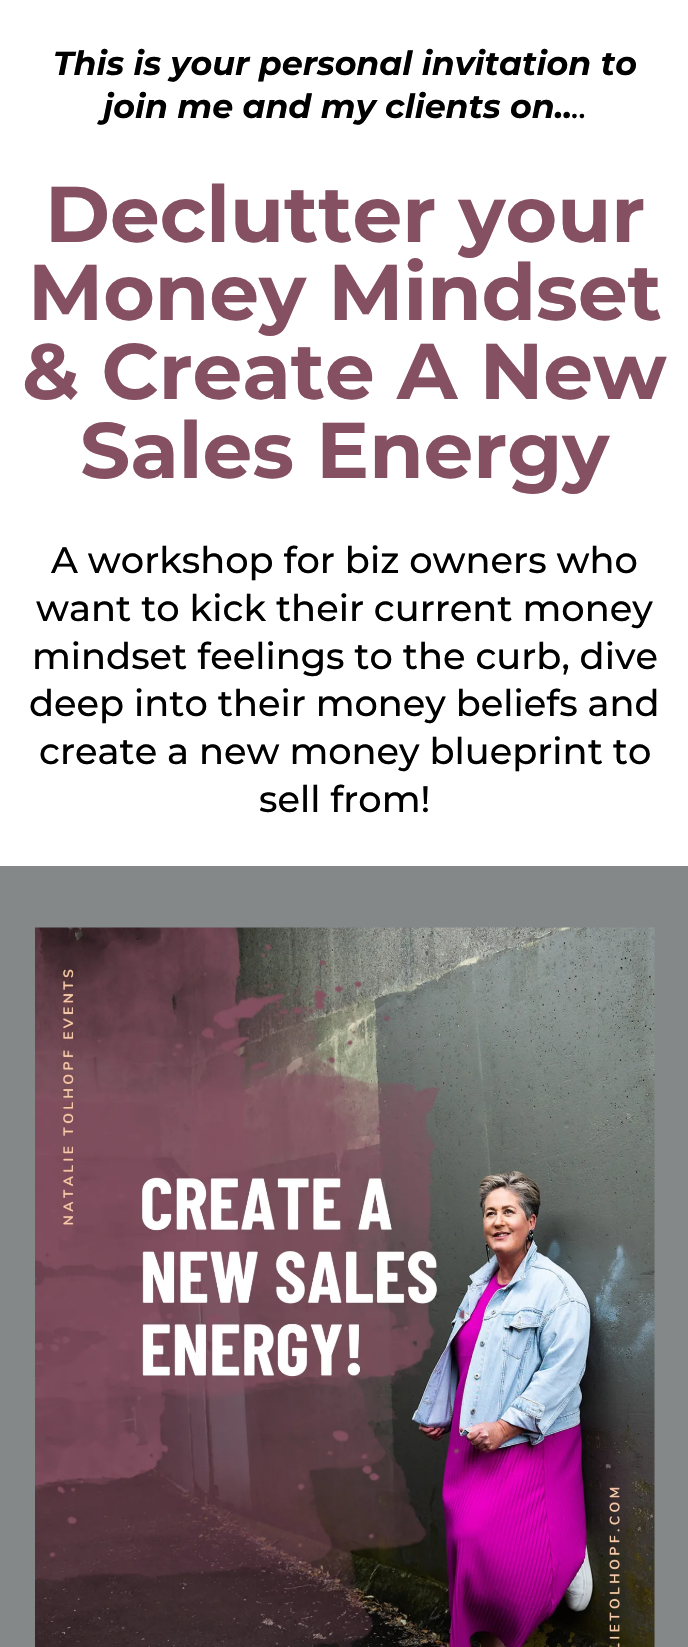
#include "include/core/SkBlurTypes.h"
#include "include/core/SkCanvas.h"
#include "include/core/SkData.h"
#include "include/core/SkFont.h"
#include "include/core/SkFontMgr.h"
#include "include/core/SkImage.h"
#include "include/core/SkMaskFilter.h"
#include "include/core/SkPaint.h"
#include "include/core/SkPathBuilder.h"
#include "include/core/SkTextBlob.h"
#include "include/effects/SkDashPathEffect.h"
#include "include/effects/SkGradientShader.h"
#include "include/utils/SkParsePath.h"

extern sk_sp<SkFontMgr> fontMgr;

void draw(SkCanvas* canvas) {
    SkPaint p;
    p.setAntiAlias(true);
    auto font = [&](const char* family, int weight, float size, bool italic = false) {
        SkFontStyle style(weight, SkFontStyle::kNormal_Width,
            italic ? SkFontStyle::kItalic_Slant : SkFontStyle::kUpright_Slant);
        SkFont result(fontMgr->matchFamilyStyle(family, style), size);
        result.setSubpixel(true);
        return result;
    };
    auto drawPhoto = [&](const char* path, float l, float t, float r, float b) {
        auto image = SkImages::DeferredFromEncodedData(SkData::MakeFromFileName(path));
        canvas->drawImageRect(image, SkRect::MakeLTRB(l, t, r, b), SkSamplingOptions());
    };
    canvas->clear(0xFFFFFFFF);
    auto font1 = font("Montserrat", 700, 33.25f, true);
    p.setColor(0xFF000000);
    canvas->drawString("This is your personal invitation to", 53, 75, font1, p);
    canvas->drawString("join me and my clients on..", 103, 118, font1, p);
    auto font2 = font("Montserrat", 500, 33.25f, true);
    canvas->drawString("..", 572, 118, font2, p);
    auto font3 = font("Montserrat", 700, 78.75f);
    p.setColor(0xFF855062);
    {
        const struct { const char* s; float x, y; } items[] = {
            {"Declutter your", 45, 242},
            {"Money Mindset", 28, 320},
            {"& Create A New", 22, 399},
            {"Sales Energy", 80, 478},
        };
        for (auto [s, x, y] : items) {
            canvas->drawString(s, x, y, font3, p);
        }
    }
    auto font4 = font("Montserrat", 500, 36.75f);
    p.setColor(0xFF000000);
    {
        const struct { const char* s; float x, y; } items[] = {
            {"A workshop for biz owners who", 51, 573},
            {"want to kick their current money", 36, 621},
            {"mindset feelings to the curb, dive", 32, 669},
            {"deep into their money beliefs and", 29, 716},
            {"create a new money blueprint to", 39, 764},
            {"sell from!", 259, 812},
        };
        for (auto [s, x, y] : items) {
            canvas->drawString(s, x, y, font4, p);
        }
    }
    p.setColor(0xFF848889);
    canvas->drawRect(SkRect::MakeLTRB(0, 866, 688, 1647), p);
    drawPhoto("media/1.png", 35, 927, 655, 1647);
}
